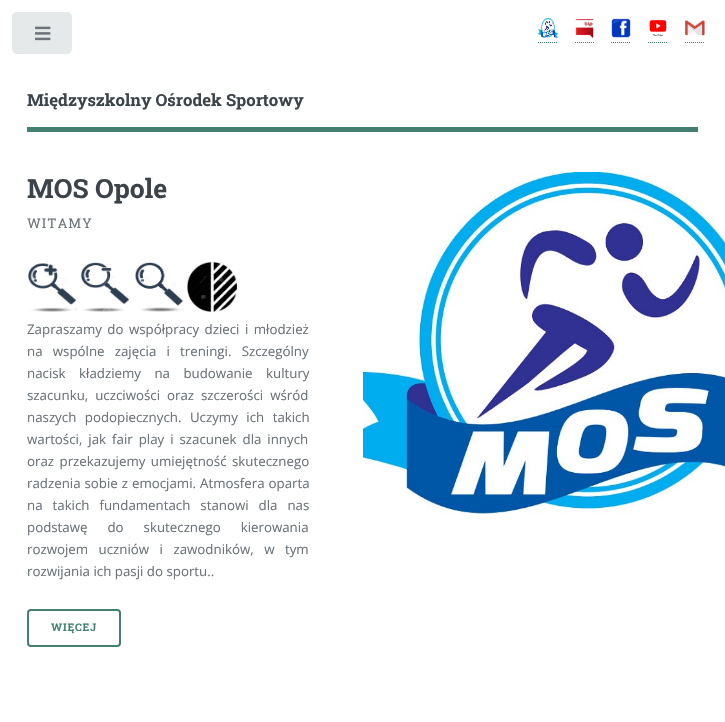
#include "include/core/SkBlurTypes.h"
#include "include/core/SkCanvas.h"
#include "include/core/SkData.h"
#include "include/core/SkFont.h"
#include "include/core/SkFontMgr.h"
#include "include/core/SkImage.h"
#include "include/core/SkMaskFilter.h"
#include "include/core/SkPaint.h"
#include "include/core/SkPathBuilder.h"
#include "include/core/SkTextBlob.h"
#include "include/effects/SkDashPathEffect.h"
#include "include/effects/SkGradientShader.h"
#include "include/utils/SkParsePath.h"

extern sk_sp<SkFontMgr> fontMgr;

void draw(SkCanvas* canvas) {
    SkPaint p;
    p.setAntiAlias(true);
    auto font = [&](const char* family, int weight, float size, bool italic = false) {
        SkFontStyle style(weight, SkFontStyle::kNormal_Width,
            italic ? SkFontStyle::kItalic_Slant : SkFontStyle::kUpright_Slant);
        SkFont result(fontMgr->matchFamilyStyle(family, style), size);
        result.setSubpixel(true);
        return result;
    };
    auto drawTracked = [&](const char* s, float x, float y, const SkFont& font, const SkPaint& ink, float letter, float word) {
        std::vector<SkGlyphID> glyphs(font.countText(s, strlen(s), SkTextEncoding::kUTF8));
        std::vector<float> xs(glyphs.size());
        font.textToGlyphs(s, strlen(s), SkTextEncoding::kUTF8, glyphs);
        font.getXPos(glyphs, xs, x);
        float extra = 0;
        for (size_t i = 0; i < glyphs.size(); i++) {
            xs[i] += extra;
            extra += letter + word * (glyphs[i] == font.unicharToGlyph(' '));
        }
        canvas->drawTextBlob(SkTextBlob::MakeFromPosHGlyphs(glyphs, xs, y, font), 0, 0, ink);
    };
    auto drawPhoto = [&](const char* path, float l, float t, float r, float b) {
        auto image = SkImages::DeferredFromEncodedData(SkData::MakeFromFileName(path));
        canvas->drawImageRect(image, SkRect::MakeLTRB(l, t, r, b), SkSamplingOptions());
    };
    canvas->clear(0xFFFFFFFF);
    p.setColor(0xFFE6E9E9);
    canvas->drawRoundRect(SkRect::MakeLTRB(12, 12, 72, 54), 5, 5, p);
    drawPhoto("media/1.png", 35, 26, 51, 41);
    p.setColor(0xFF448071);
    canvas->drawRect(SkRect::MakeLTRB(27, 127, 698, 132), p);
    drawPhoto("media/2.png", 538, 18, 558, 38);
    p.setStyle(SkPaint::kStroke_Style);
    p.setStrokeWidth(1);
    p.setPathEffect(SkDashPathEffect::Make({{1, 1}}, 0));
    canvas->drawPath(SkPathBuilder().moveTo(538, 42.5f).lineTo(558, 42.5f).detach(), p);
    p.setPathEffect(nullptr);
    drawPhoto("media/3.png", 575, 19, 594, 38);
    p.setPathEffect(SkDashPathEffect::Make({{1, 1}}, 0));
    canvas->drawPath(SkPathBuilder().moveTo(575, 42.5f).lineTo(595, 42.5f).detach(), p);
    p.setPathEffect(nullptr);
    drawPhoto("media/4.png", 611, 18, 631, 38);
    p.setPathEffect(SkDashPathEffect::Make({{1, 1}}, 0));
    canvas->drawPath(SkPathBuilder().moveTo(611, 42.5f).lineTo(631, 42.5f).detach(), p);
    p.setPathEffect(nullptr);
    drawPhoto("media/5.png", 649, 20, 667, 37);
    p.setPathEffect(SkDashPathEffect::Make({{1, 1}}, 0));
    canvas->drawPath(SkPathBuilder().moveTo(648, 42.5f).lineTo(668, 42.5f).detach(), p);
    p.setPathEffect(nullptr);
    drawPhoto("media/6.png", 685, 20, 705, 36);
    p.setPathEffect(SkDashPathEffect::Make({{1, 1}}, 0));
    canvas->drawPath(SkPathBuilder().moveTo(685, 42.5f).lineTo(705, 42.5f).detach(), p);
    p.setPathEffect(nullptr);
    auto font1 = font("Roboto Slab", 700, 16.7f);
    p.setStyle(SkPaint::kFill_Style);
    p.setColor(0xFF3D4449);
    canvas->drawString("Międzyszkolny Ośrodek Sportowy", 27, 106, font1, p);
    auto font2 = font("Roboto Slab", 700, 26.5f);
    canvas->drawString("MOS Opole", 27, 198, font2, p);
    auto font3 = font("Roboto Slab", 400, 13.3f);
    p.setColor(0xFF6C7379);
    drawTracked("WITAMY", 27, 228, font3, p, 1, 0);
    drawPhoto("media/7.png", 27, 263, 77, 312);
    drawPhoto("media/8.png", 81, 262, 130, 312);
    drawPhoto("media/9.png", 135, 262, 184, 312);
    drawPhoto("media/10.png", 187, 262, 237, 312);
    auto font4 = font("Open Sans", 400, 13.3f);
    drawTracked("Zapraszamy do współpracy dzieci i młodzież", 27, 334, font4, p, 0, 2);
    drawTracked("na wspólne zajęcia i treningi. Szczególny", 27, 356, font4, p, 0, 6.75f);
    drawTracked("nacisk kładziemy na budowanie kultury", 27, 378, font4, p, 0, 10);
    drawTracked("szacunku, uczciwości oraz szczerości wśród", 27, 400, font4, p, 0, 3.5f);
    drawTracked("naszych podopiecznych. Uczymy ich takich", 27, 422, font4, p, 0, 5);
    drawTracked("wartości, jak fair play i szacunek dla innych", 27, 444, font4, p, 0, 2.5f);
    drawTracked("oraz przekazujemy umiejętność skutecznego", 27, 466, font4, p, 0, 2);
    drawTracked("radzenia sobie z emocjami. Atmosfera oparta", 27, 488, font4, p, 0, 0.5f);
    drawTracked("na takich fundamentach stanowi dla nas", 27, 510, font4, p, 0, 6.5f);
    drawTracked("podstawę do skutecznego kierowania", 27, 532, font4, p, 0, 16.5f);
    drawTracked("rozwojem uczniów i zawodników, w tym", 27, 554, font4, p, 0, 7);
    canvas->drawString("rozwijania ich pasji do sportu..", 27, 576, font4, p);
    p.setStyle(SkPaint::kStroke_Style);
    p.setStrokeWidth(2);
    p.setColor(0xFF448071);
    canvas->drawRoundRect(SkRect::MakeLTRB(28, 610, 120, 646), 3, 3, p);
    auto font5 = font("Roboto Slab", 700, 10.5f);
    p.setStyle(SkPaint::kFill_Style);
    drawTracked("WIĘCEJ", 51, 631, font5, p, 0.75f, 0);
    drawPhoto("media/11.png", 363, 172, 725, 514);
}
